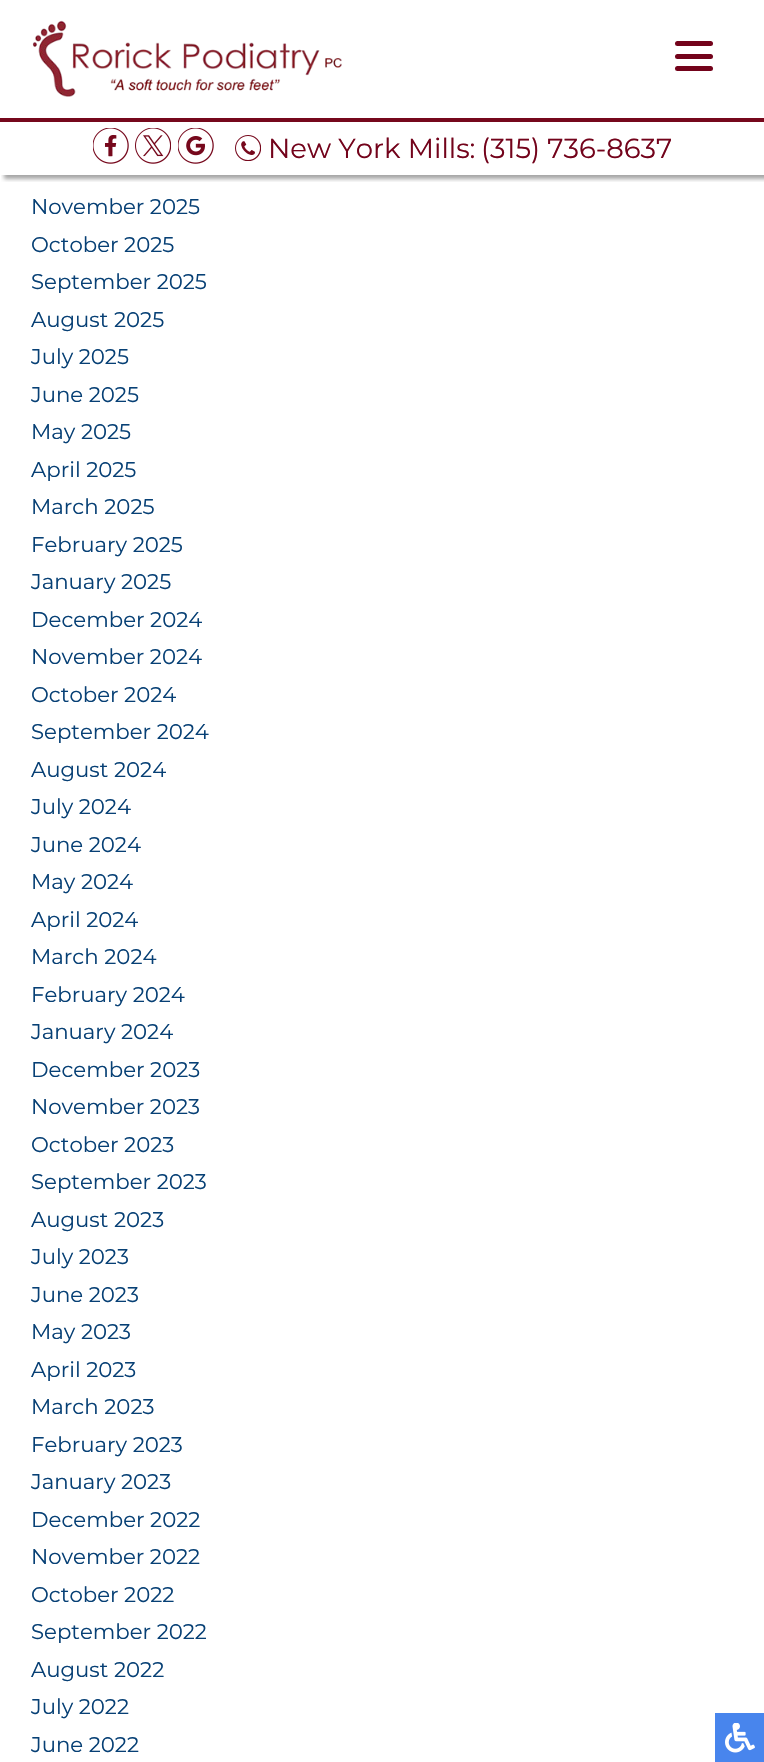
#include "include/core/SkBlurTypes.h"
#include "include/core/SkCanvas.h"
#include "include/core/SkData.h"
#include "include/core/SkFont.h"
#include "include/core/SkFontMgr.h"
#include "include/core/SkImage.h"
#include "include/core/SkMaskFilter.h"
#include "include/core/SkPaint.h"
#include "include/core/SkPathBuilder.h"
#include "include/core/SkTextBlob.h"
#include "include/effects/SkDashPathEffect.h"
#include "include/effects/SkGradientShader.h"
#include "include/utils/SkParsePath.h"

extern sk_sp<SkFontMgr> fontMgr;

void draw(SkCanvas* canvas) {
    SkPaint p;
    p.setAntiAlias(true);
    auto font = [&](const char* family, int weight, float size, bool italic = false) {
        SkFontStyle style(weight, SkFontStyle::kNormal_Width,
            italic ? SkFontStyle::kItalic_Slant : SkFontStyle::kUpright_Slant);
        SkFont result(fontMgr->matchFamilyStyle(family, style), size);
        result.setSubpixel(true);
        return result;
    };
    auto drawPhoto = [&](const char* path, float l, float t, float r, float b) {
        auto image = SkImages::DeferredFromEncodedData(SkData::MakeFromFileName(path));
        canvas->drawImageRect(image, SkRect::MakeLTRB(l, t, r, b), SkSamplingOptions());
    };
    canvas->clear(0xFFFFFFFF);
    canvas->save();
    canvas->clipRect(SkRect::MakeLTRB(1, 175, 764, 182));
    p.setColor(0x59000000);
    p.setMaskFilter(SkMaskFilter::MakeBlur(kNormal_SkBlurStyle, 2));
    canvas->drawRect(SkRect::MakeLTRB(4, 4, 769, 179), p);
    p.setMaskFilter(nullptr);
    canvas->restore();
    drawPhoto("media/1.png", 32, 20, 342, 97);
    p.setColor(0xFF73031B);
    canvas->drawRoundRect(SkRect::MakeLTRB(675, 41, 713, 46), 2.5f, 2.5f, p);
    canvas->drawRoundRect(SkRect::MakeLTRB(675, 54, 713, 59), 2.5f, 2.5f, p);
    canvas->drawRoundRect(SkRect::MakeLTRB(675, 66, 713, 71), 2.5f, 2.5f, p);
    p.setColor(0xFF76081C);
    canvas->drawRect(SkRect::MakeLTRB(0, 118, 764, 122), p);
    drawPhoto("media/2.png", 93, 128, 129, 164);
    drawPhoto("media/3.png", 135, 128, 171, 164);
    drawPhoto("media/4.png", 178, 128, 214, 164);
    drawPhoto("media/5.png", 235, 135, 261, 161);
    auto font1 = font("Montserrat", 400, 27.5f);
    p.setColor(0xFF73031B);
    canvas->drawString("New York Mills:", 268, 158, font1, p);
    canvas->drawString("(315) 736-8637", 481, 158, font1, p);
    auto font2 = font("Montserrat", 400, 21.25f);
    p.setColor(0xFF074075);
    {
        const struct { const char* s; float x, y; } items[] = {
            {"November 2025", 31, 214},
            {"October 2025", 31, 252},
            {"September 2025", 31, 289},
            {"August 2025", 31, 327},
            {"July 2025", 31, 364},
            {"June 2025", 31, 402},
            {"May 2025", 31, 439},
            {"April 2025", 31, 477},
            {"March 2025", 31, 514},
            {"February 2025", 31, 552},
            {"January 2025", 31, 589},
            {"December 2024", 31, 627},
            {"November 2024", 31, 664},
            {"October 2024", 31, 702},
            {"September 2024", 31, 739},
            {"August 2024", 31, 777},
            {"July 2024", 31, 814},
            {"June 2024", 31, 852},
            {"May 2024", 31, 889},
            {"April 2024", 31, 927},
            {"March 2024", 31, 964},
            {"February 2024", 31, 1002},
            {"January 2024", 31, 1039},
            {"December 2023", 31, 1077},
            {"November 2023", 31, 1114},
            {"October 2023", 31, 1152},
            {"September 2023", 31, 1189},
            {"August 2023", 31, 1227},
            {"July 2023", 31, 1264},
            {"June 2023", 31, 1302},
            {"May 2023", 31, 1339},
            {"April 2023", 31, 1377},
            {"March 2023", 31, 1414},
            {"February 2023", 31, 1452},
            {"January 2023", 31, 1489},
            {"December 2022", 31, 1527},
            {"November 2022", 31, 1564},
            {"October 2022", 31, 1602},
            {"September 2022", 31, 1639},
            {"August 2022", 31, 1677},
            {"July 2022", 31, 1714},
            {"June 2022", 31, 1752},
        };
        for (auto [s, x, y] : items) {
            canvas->drawString(s, x, y, font2, p);
        }
    }
    p.setColor(0xFF4885ED);
    canvas->drawRect(SkRect::MakeLTRB(715, 1713, 764, 1762), p);
    drawPhoto("media/6.png", 725, 1723, 755, 1753);
}
